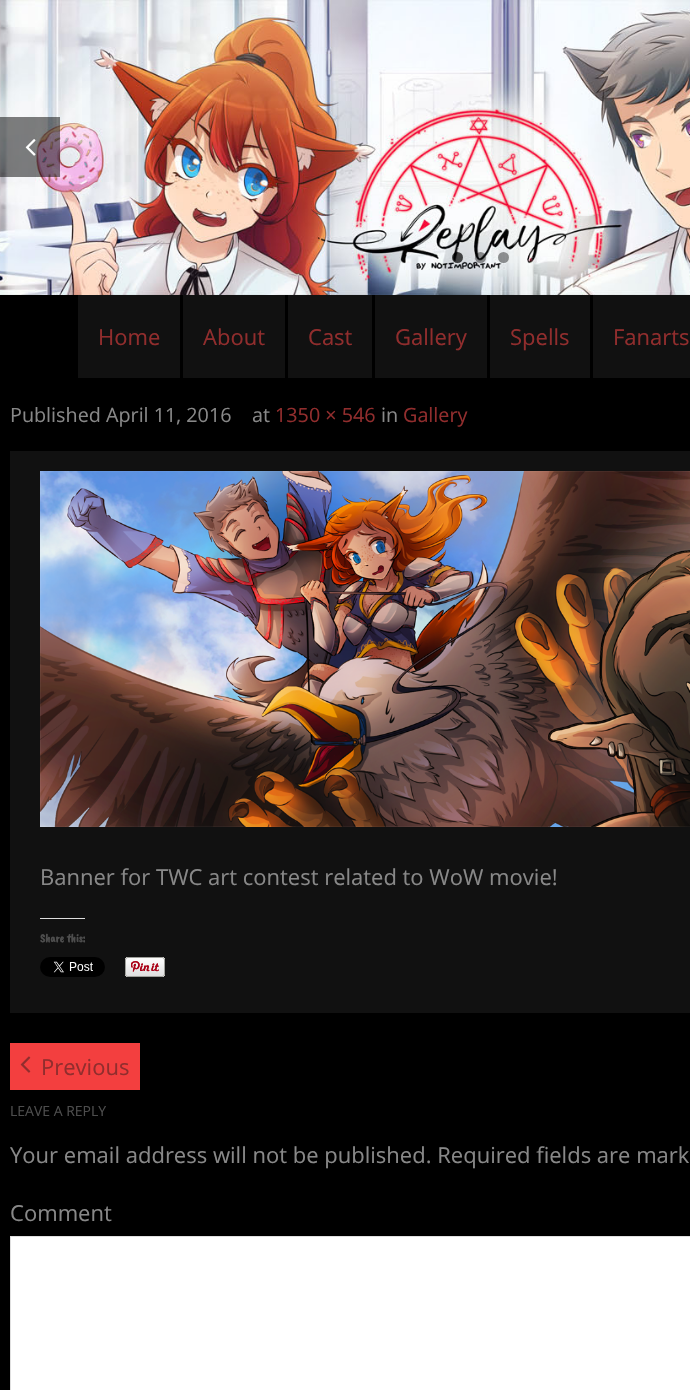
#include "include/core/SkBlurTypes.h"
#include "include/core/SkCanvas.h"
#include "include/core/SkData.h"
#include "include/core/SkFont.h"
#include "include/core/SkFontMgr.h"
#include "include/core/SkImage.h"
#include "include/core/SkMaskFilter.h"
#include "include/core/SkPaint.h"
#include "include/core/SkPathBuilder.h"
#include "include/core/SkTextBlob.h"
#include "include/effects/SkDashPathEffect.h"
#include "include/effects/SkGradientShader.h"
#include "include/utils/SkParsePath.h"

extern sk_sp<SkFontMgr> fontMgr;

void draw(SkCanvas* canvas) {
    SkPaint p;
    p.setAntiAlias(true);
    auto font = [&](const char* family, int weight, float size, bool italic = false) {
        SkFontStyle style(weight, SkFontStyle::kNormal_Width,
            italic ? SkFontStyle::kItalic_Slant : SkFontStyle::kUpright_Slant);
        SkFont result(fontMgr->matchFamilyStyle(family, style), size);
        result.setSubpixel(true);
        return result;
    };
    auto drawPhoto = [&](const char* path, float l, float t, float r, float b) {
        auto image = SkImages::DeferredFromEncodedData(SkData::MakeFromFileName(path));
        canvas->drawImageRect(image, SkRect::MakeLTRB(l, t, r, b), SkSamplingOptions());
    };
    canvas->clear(0xFF000000);
    drawPhoto("media/1.png", 0, 0, 690, 295);
    p.setColor(0x80000000);
    canvas->drawRect(SkRect::MakeLTRB(0, 117, 60, 177), p);
    drawPhoto("media/2.png", 25, 139, 36, 156);
    p.setColor(0xB3000000);
    canvas->drawCircle(457.5f, 257.5f, 5.5f, p);
    p.setColor(0x66000000);
    canvas->drawCircle(480.5f, 257.5f, 5.5f, p);
    canvas->drawCircle(503.5f, 257.5f, 5.5f, p);
    p.setColor(0xFF111111);
    canvas->drawRect(SkRect::MakeLTRB(78, 295, 180, 378), p);
    auto font1 = font("Open Sans", 400, 22);
    p.setColor(0xFF912D2D);
    canvas->drawString("Home", 98, 345, font1, p);
    p.setColor(0xFF111111);
    canvas->drawRect(SkRect::MakeLTRB(183, 295, 285, 378), p);
    p.setColor(0xFF912D2D);
    canvas->drawString("About", 203, 345, font1, p);
    p.setColor(0xFF111111);
    canvas->drawRect(SkRect::MakeLTRB(288, 295, 372, 378), p);
    p.setColor(0xFF912D2D);
    canvas->drawString("Cast", 308, 345, font1, p);
    p.setColor(0xFF111111);
    canvas->drawRect(SkRect::MakeLTRB(375, 295, 487, 378), p);
    p.setColor(0xFF912D2D);
    canvas->drawString("Gallery", 395, 345, font1, p);
    p.setColor(0xFF111111);
    canvas->drawRect(SkRect::MakeLTRB(490, 295, 590, 378), p);
    p.setColor(0xFF912D2D);
    canvas->drawString("Spells", 510, 345, font1, p);
    p.setColor(0xFF111111);
    canvas->drawRect(SkRect::MakeLTRB(593, 295, 690, 378), p);
    p.setColor(0xFF912D2D);
    canvas->drawString("Fanarts", 613, 345, font1, p);
    auto font2 = font("Open Sans", 400, 19.75f);
    p.setColor(0xFF888888);
    canvas->drawString("Published April 11, 2016", 10, 422, font2, p);
    canvas->drawString("at", 252, 422, font2, p);
    p.setColor(0xFF912D2D);
    canvas->drawString("1350 × 546", 275, 422, font2, p);
    p.setColor(0xFF888888);
    canvas->drawString("in", 381, 422, font2, p);
    p.setColor(0xFF912D2D);
    canvas->drawString("Gallery", 403, 422, font2, p);
    p.setColor(0xFF111111);
    canvas->drawRect(SkRect::MakeLTRB(10, 451, 690, 1013), p);
    drawPhoto("media/3.png", 40, 471, 690, 827);
    p.setColor(0xFF888888);
    canvas->drawString("Banner for TWC art contest related to WoW movie!", 40, 885, font1, p);
    p.setColor(0xFFDDDDDD);
    canvas->drawRect(SkRect::MakeLTRB(40, 918, 85, 919), p);
    auto font3 = font("Caveat Brush", 700, 12);
    p.setColor(0xFF4D4D4D);
    canvas->drawString("Share this:", 40, 942, font3, p);
    drawPhoto("media/4.png", 40, 957, 105, 977);
    drawPhoto("media/5.png", 125, 957, 165, 977);
    p.setColor(0xFFF33F3F);
    canvas->drawRect(SkRect::MakeLTRB(10, 1043, 140, 1090), p);
    drawPhoto("media/6.png", 20, 1056, 31, 1073);
    p.setColor(0xFF912D2D);
    canvas->drawString("Previous", 41, 1075, font1, p);
    auto font4 = font("Open Sans", 400, 14);
    p.setColor(0xFF4D4D4D);
    canvas->drawString("LEAVE A REPLY", 10, 1116, font4, p);
    p.setColor(0xFF888888);
    canvas->drawString("Your email address will not be published. Required fields are mark", 10, 1163, font1, p);
    canvas->drawString("Comment", 10, 1221, font1, p);
    p.setColor(0xFFFFFFFF);
    canvas->drawRect(SkRect::MakeLTRB(10.5f, 1236.5f, 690.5f, 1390.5f), p);
    p.setStyle(SkPaint::kStroke_Style);
    p.setStrokeWidth(1);
    p.setColor(0xFFE0E0E0);
    canvas->drawRect(SkRect::MakeLTRB(10.5f, 1236.5f, 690.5f, 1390.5f), p);
}
